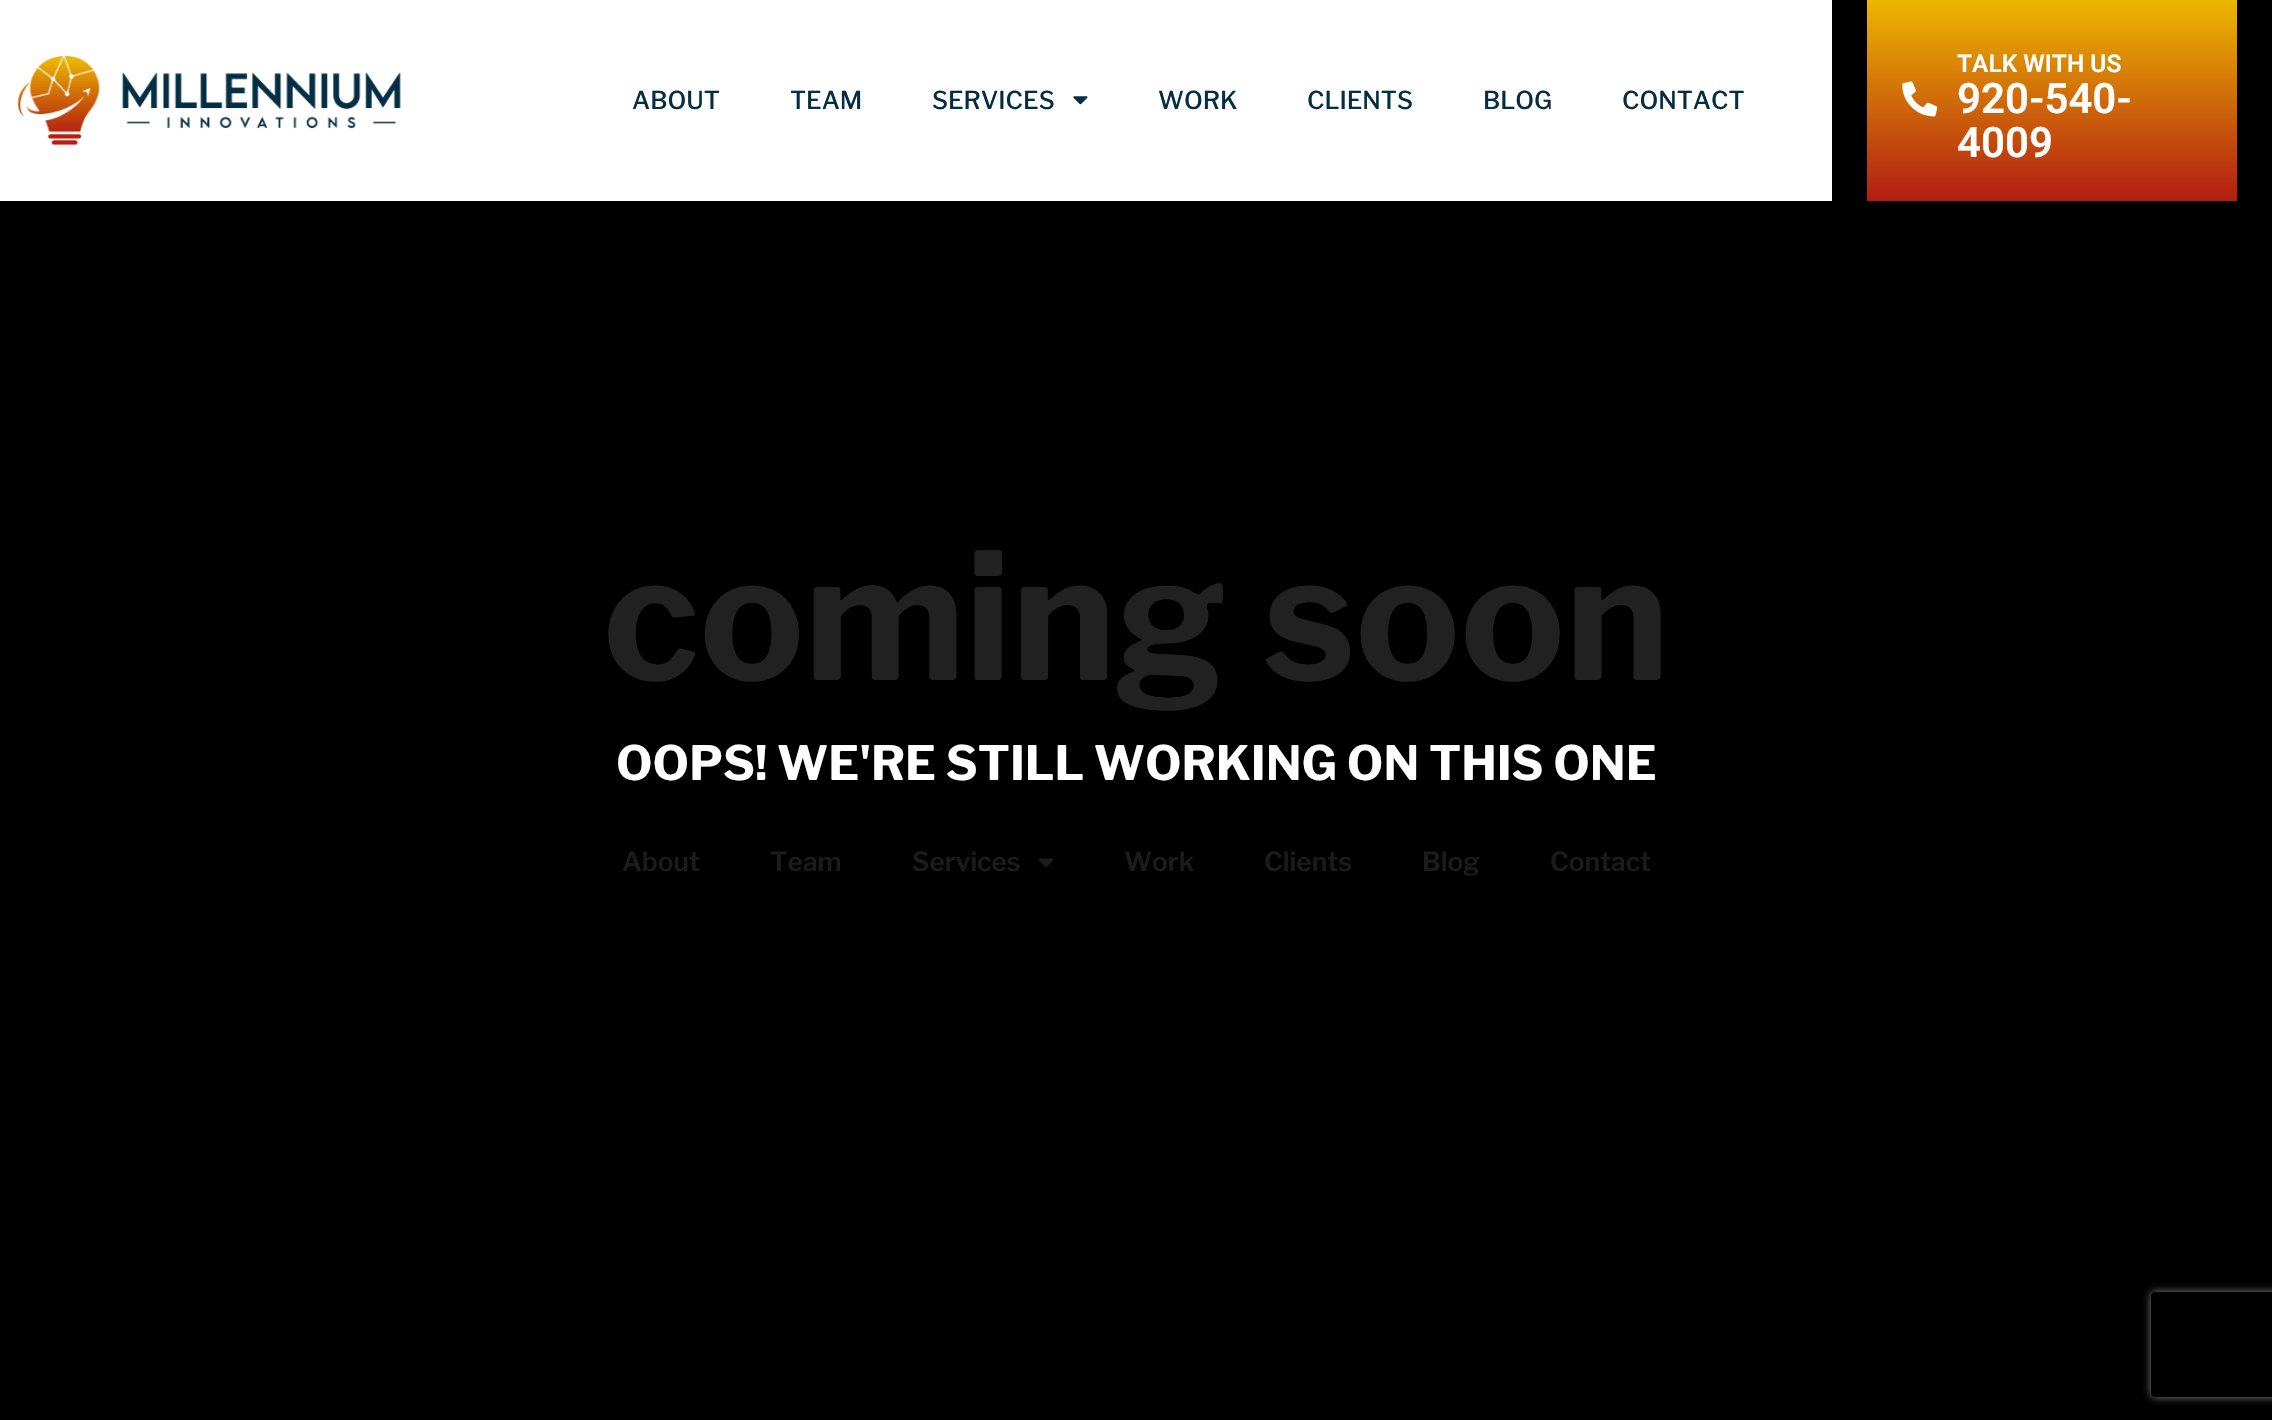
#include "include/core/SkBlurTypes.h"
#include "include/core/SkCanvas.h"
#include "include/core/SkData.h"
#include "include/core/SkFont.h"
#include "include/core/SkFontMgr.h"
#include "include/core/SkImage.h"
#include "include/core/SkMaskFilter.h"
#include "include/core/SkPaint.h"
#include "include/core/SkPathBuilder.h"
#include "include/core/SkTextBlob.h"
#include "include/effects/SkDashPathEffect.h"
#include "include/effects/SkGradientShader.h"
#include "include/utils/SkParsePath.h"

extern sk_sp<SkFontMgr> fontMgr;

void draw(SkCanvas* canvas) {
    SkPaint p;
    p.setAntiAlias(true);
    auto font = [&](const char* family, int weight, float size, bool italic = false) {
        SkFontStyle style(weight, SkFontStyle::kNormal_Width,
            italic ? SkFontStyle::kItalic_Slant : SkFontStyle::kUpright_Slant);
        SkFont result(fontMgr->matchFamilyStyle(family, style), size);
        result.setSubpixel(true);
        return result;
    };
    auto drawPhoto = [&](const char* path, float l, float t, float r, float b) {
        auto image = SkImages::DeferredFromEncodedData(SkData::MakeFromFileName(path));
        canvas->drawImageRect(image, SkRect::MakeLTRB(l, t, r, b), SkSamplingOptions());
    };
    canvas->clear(0xFF000000);
    p.setColor(0xFFFFFFFF);
    canvas->drawRect(SkRect::MakeLTRB(0, 0, 1832, 201), p);
    drawPhoto("media/1.png", 17, 56, 402, 146);
    {
        const SkColor colors[] = {0xFFEDB700, 0xFFB21D12};
        const float stops[] = {0, 1};
        const SkPoint ends[] = {{2052, 0}, {2052, 201}};
        p.setShader(SkGradientShader::MakeLinear(ends, colors, stops, 2, SkTileMode::kClamp));
        p.setAlpha(255);
    }
    canvas->drawRect(SkRect::MakeLTRB(1867, 0, 2237, 201), p);
    drawPhoto("media/2.png", 1902, 81, 1938, 117);
    auto font1 = font("Roboto", 600, 24.5f);
    p.setShader(nullptr);
    p.setColor(0xFFFFFFFF);
    canvas->drawString("TALK WITH US", 1957, 72, font1, p);
    auto font2 = font("Roboto", 600, 42);
    canvas->drawString("920-540-", 1957, 113, font2, p);
    canvas->drawString("4009", 1957, 157, font2, p);
    auto font3 = font("Libre Franklin", 500, 24.5f);
    p.setColor(0xFF042E43);
    {
        const struct { const char* s; float x, y; } items[] = {
            {"ABOUT", 632, 109},
            {"TEAM", 790, 109},
            {"SERVICES", 932, 109},
        };
        for (auto [s, x, y] : items) {
            canvas->drawString(s, x, y, font3, p);
        }
    }
    drawPhoto("media/3.png", 1073, 96, 1088, 105);
    {
        const struct { const char* s; float x, y; } items[] = {
            {"WORK", 1158, 109},
            {"CLIENTS", 1307, 109},
            {"BLOG", 1483, 109},
            {"CONTACT", 1622, 109},
        };
        for (auto [s, x, y] : items) {
            canvas->drawString(s, x, y, font3, p);
        }
    }
    auto font4 = font("Libre Franklin", 700, 175);
    p.setColor(0xFF212121);
    canvas->drawString("coming soon", 603, 680, font4, p);
    auto font5 = font("Libre Franklin", 700, 47.25f);
    p.setColor(0xFFFFFFFF);
    canvas->drawString("OOPS! WE'RE STILL WORKING ON THIS ONE", 616, 780, font5, p);
    auto font6 = font("Libre Franklin", 600, 26.25f);
    p.setColor(0xFF1B1B1B);
    {
        const struct { const char* s; float x, y; } items[] = {
            {"About", 622, 871},
            {"Team", 770, 871},
            {"Services", 912, 871},
        };
        for (auto [s, x, y] : items) {
            canvas->drawString(s, x, y, font6, p);
        }
    }
    drawPhoto("media/4.png", 1038, 858, 1054, 867);
    {
        const struct { const char* s; float x, y; } items[] = {
            {"Work", 1124, 871},
            {"Clients", 1264, 871},
            {"Blog", 1422, 871},
            {"Contact", 1550, 871},
        };
        for (auto [s, x, y] : items) {
            canvas->drawString(s, x, y, font6, p);
        }
    }
    canvas->save();
    canvas->clipPath(SkPathBuilder(SkPathFillType::kEvenOdd).moveTo(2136, 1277).lineTo(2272, 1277).lineTo(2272, 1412).lineTo(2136, 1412).close().moveTo(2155, 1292).lineTo(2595, 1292).cubicTo(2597, 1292, 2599, 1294, 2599, 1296).lineTo(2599, 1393).cubicTo(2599, 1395, 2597, 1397, 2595, 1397).lineTo(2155, 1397).cubicTo(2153, 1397, 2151, 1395, 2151, 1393).lineTo(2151, 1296).cubicTo(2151, 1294, 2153, 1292, 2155, 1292).close().detach(), true);
    p.setColor(0xFF808080);
    p.setMaskFilter(SkMaskFilter::MakeBlur(kNormal_SkBlurStyle, 4.5f));
    canvas->drawRoundRect(SkRect::MakeLTRB(2151, 1292, 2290, 1397), 4, 4, p);
    p.setMaskFilter(nullptr);
    canvas->restore();
}
